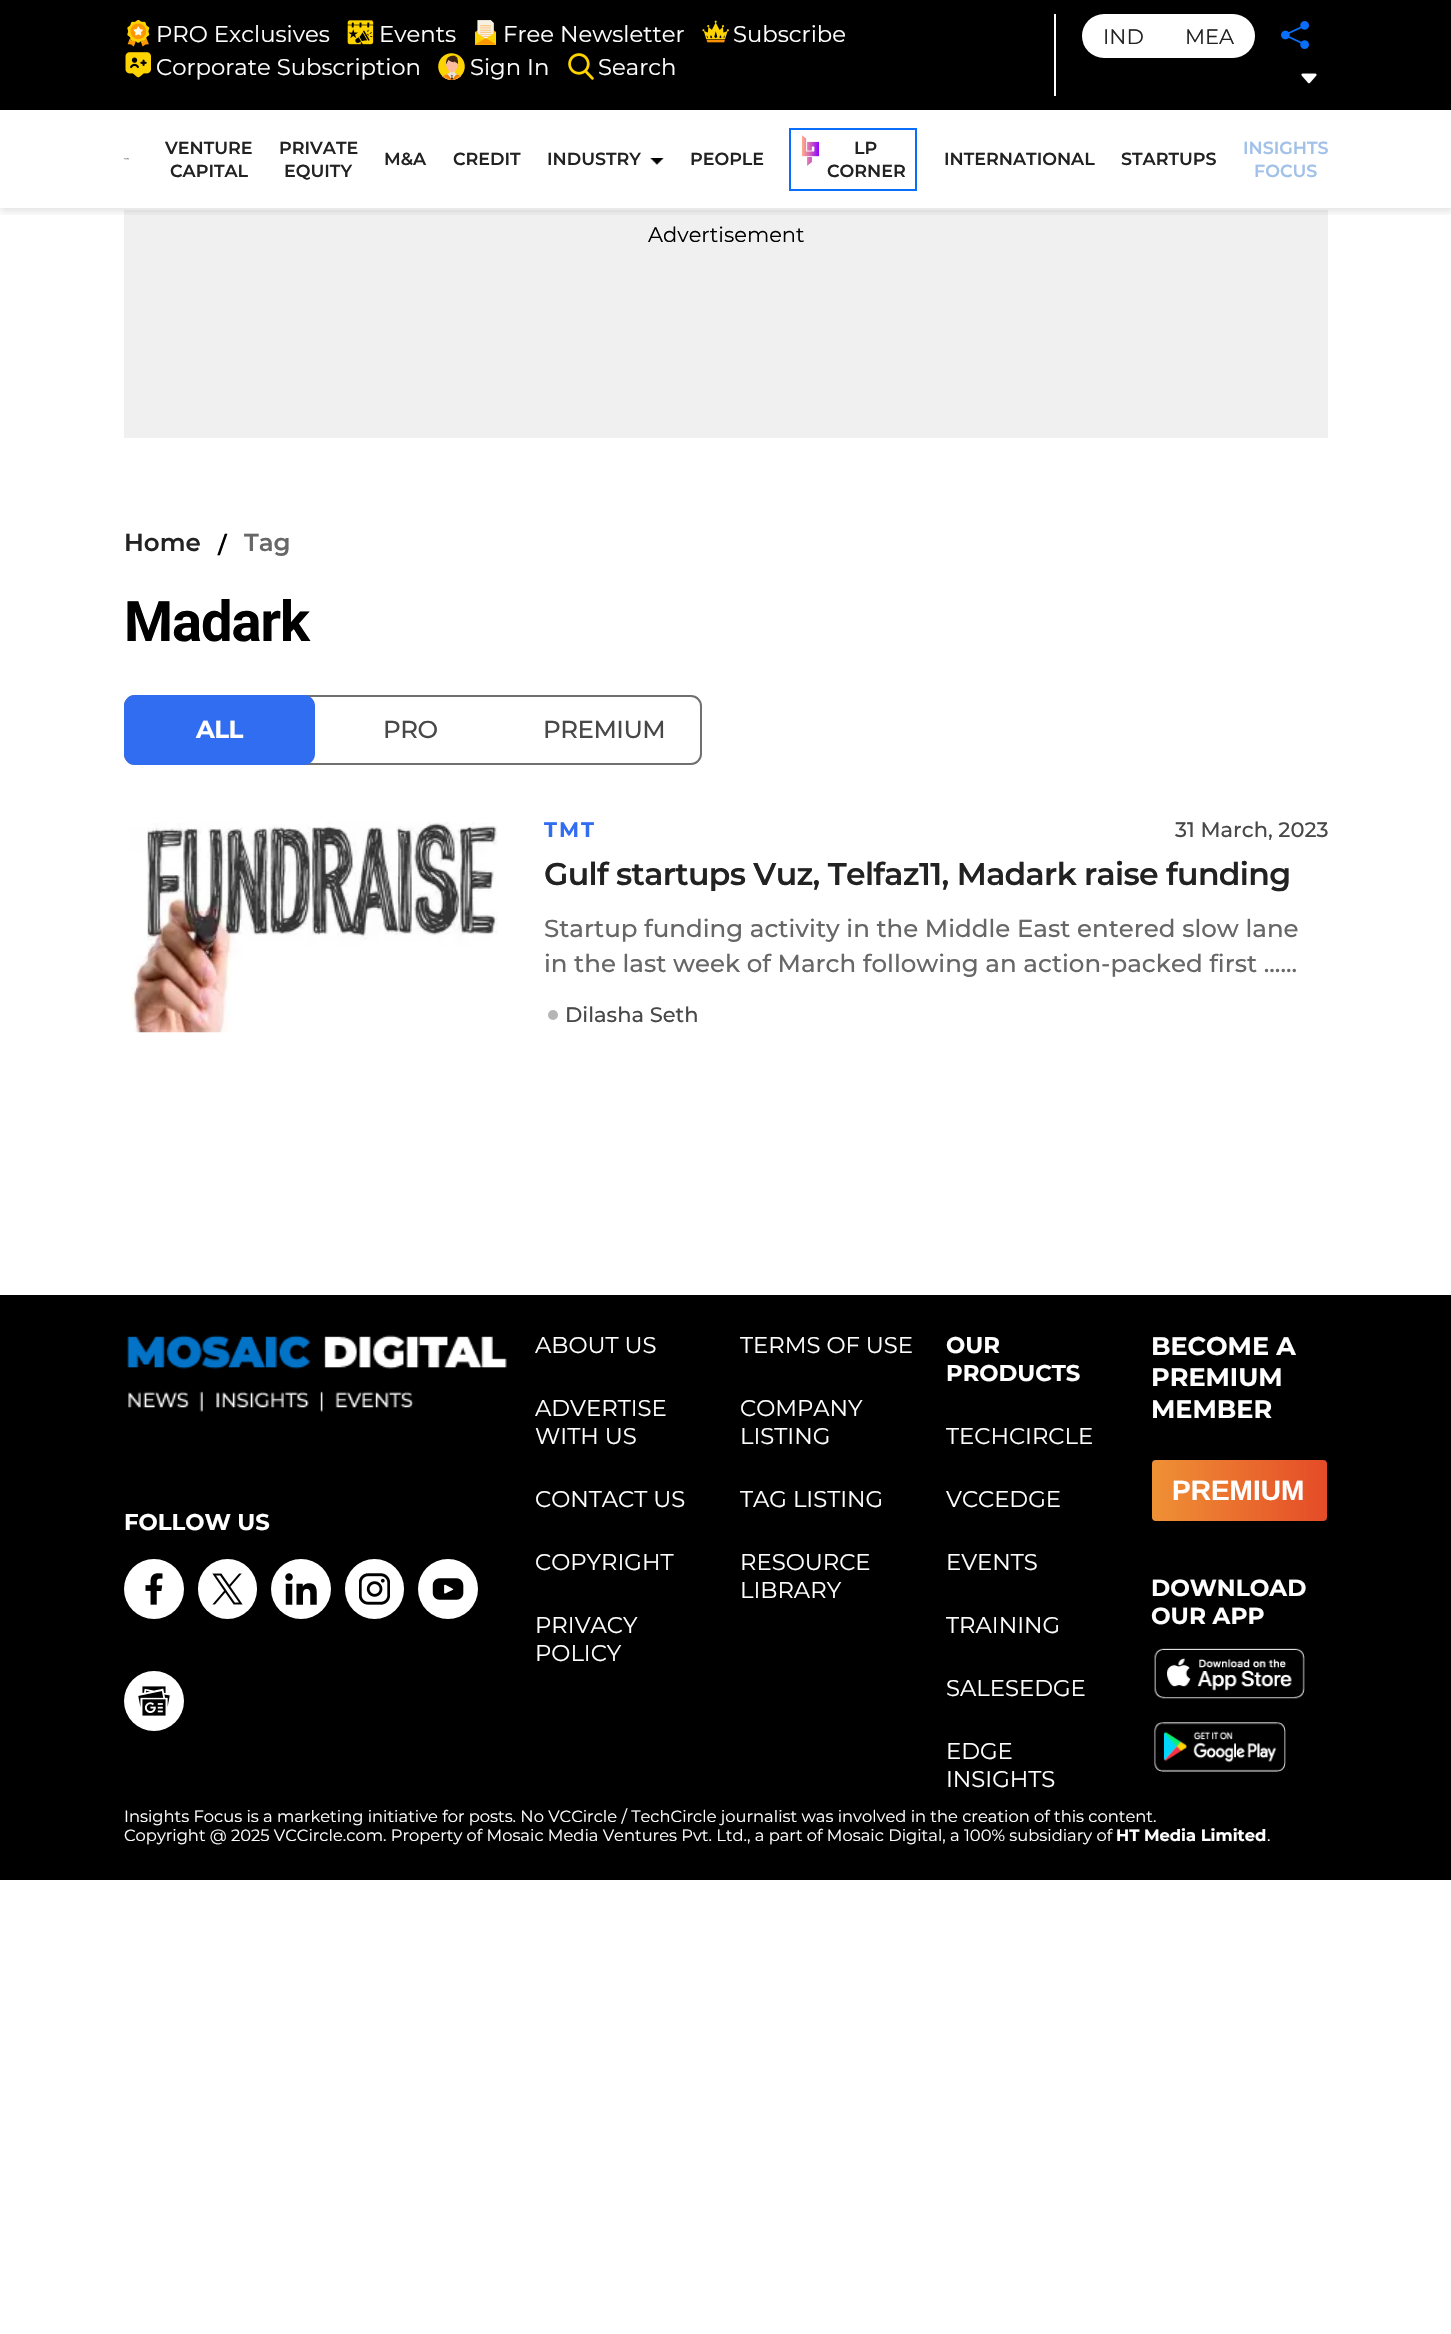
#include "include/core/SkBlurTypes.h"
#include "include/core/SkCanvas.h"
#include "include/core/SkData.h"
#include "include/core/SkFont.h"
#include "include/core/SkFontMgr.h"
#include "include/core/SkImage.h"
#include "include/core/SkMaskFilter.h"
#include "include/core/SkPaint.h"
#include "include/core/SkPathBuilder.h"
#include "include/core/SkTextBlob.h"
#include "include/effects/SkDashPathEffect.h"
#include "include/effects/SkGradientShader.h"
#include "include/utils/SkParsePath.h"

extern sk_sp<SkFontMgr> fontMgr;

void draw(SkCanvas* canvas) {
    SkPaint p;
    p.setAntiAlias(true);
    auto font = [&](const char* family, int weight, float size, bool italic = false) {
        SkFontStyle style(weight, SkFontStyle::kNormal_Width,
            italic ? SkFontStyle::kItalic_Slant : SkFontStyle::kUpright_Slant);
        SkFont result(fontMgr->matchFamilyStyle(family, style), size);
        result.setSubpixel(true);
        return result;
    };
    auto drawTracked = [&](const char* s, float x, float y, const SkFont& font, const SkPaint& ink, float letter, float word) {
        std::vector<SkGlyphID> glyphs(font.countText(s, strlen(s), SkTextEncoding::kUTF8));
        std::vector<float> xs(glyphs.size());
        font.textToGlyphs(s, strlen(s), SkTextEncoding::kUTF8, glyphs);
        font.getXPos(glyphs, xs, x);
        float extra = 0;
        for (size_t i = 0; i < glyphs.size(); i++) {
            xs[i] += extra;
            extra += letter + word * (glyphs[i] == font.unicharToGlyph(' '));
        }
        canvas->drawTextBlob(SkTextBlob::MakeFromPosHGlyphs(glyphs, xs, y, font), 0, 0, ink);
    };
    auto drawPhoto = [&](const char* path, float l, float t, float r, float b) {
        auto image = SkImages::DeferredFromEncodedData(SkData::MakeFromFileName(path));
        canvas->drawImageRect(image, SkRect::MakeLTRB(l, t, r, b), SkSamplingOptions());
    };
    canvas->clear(0xFFFFFFFF);
    p.setColor(0xFFF0F0F0);
    canvas->drawRect(SkRect::MakeLTRB(124, 210, 1328, 438), p);
    canvas->save();
    canvas->clipRect(SkRect::MakeLTRB(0, 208, 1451, 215));
    p.setColor(0x1A000000);
    p.setMaskFilter(SkMaskFilter::MakeBlur(kNormal_SkBlurStyle, 3.5f));
    canvas->drawRect(SkRect::MakeLTRB(0, 4, 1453, 212), p);
    p.setMaskFilter(nullptr);
    canvas->restore();
    p.setColor(0xFF000000);
    canvas->drawRect(SkRect::MakeLTRB(0, 0, 1451, 110), p);
    p.setColor(0xFFFFFFFF);
    canvas->drawRect(SkRect::MakeLTRB(1054, 14, 1056, 96), p);
    drawPhoto("media/1.png", 127, 19, 150, 47);
    auto font1 = font("Montserrat", 400, 22.75f);
    canvas->drawString("PRO Exclusives", 156, 42, font1, p);
    drawPhoto("media/2.png", 347, 20, 374, 45);
    canvas->drawString("Events", 379, 42, font1, p);
    drawPhoto("media/3.png", 475, 20, 497, 45);
    canvas->drawString("Free Newsletter", 503, 42, font1, p);
    drawPhoto("media/4.png", 702, 20, 729, 43);
    canvas->drawString("Subscribe", 733, 42, font1, p);
    drawPhoto("media/5.png", 125, 52, 151, 78);
    canvas->drawString("Corporate Subscription", 156, 75, font1, p);
    drawPhoto("media/6.png", 438, 53, 465, 80);
    canvas->drawString("Sign In", 470, 75, font1, p);
    drawPhoto("media/7.png", 568, 53, 594, 80);
    canvas->drawString("Search", 598, 75, font1, p);
    canvas->drawRoundRect(SkRect::MakeLTRB(1082, 14, 1255, 58), 22, 22, p);
    auto font2 = font("Montserrat", 400, 21);
    p.setColor(0xFF222222);
    canvas->drawString("IND", 1103, 44, font2, p);
    canvas->drawString("MEA", 1185, 44, font2, p);
    drawPhoto("media/8.png", 1281, 21, 1309, 49);
    drawPhoto("media/9.png", 1301, 73, 1317, 84);
    drawPhoto("media/10.png", 124, 158, 129, 160);
    auto font3 = font("Montserrat", 600, 17.5f);
    {
        const struct { const char* s; float x, y; } items[] = {
            {"VENTURE", 165, 154},
            {"CAPITAL", 170, 177},
            {"PRIVATE", 279, 154},
            {"EQUITY", 284, 177},
            {"M&A", 384, 165},
            {"CREDIT", 453, 165},
            {"INDUSTRY", 547, 165},
        };
        for (auto [s, x, y] : items) {
            canvas->drawString(s, x, y, font3, p);
        }
    }
    drawPhoto("media/11.png", 650, 158, 664, 165);
    canvas->drawString("PEOPLE", 690, 165, font3, p);
    drawPhoto("media/12.png", 802, 135, 819, 166);
    p.setStyle(SkPaint::kStroke_Style);
    p.setStrokeWidth(2);
    p.setColor(0xFF096FFA);
    canvas->drawRect(SkRect::MakeLTRB(790, 129, 916, 190), p);
    p.setStyle(SkPaint::kFill_Style);
    p.setColor(0xFF222222);
    {
        const struct { const char* s; float x, y; } items[] = {
            {"LP", 854, 154},
            {"CORNER", 827, 177},
            {"INTERNATIONAL", 944, 165},
            {"STARTUPS", 1121, 165},
        };
        for (auto [s, x, y] : items) {
            canvas->drawString(s, x, y, font3, p);
        }
    }
    p.setColor(0xFFA1C1E8);
    canvas->drawString("INSIGHTS", 1243, 154, font3, p);
    canvas->drawString("FOCUS", 1254, 177, font3, p);
    p.setColor(0xFF000000);
    canvas->drawString("Advertisement", 648, 242, font2, p);
    auto font4 = font("Montserrat", 600, 24.5f);
    p.setColor(0xFF222222);
    canvas->drawString("Home", 124, 551, font4, p);
    auto font5 = font("Montserrat", 600, 22.75f);
    p.setColor(0xFF000000);
    canvas->drawString("/", 218, 553, font5, p);
    p.setColor(0xFF676767);
    canvas->drawString("Tag", 244, 551, font4, p);
    auto font6 = font("Roboto", 700, 56);
    p.setColor(0xFF000000);
    drawTracked("Madark", 124, 641, font6, p, -1, 0);
    p.setStyle(SkPaint::kStroke_Style);
    p.setColor(0xFF707070);
    canvas->drawRoundRect(SkRect::MakeLTRB(125, 696, 701, 764), 10, 10, p);
    p.setStyle(SkPaint::kFill_Style);
    p.setColor(0xFF316DF1);
    canvas->drawRoundRect(SkRect::MakeLTRB(125, 696, 314, 764), 10, 10, p);
    p.setStyle(SkPaint::kStroke_Style);
    canvas->drawRoundRect(SkRect::MakeLTRB(125, 696, 314, 764), 10, 10, p);
    auto font7 = font("Montserrat", 700, 24.5f);
    p.setStyle(SkPaint::kFill_Style);
    p.setColor(0xFFFFFFFF);
    drawTracked("ALL", 196, 738, font7, p, -0.5f, 0);
    auto font8 = font("Montserrat", 500, 24.5f);
    p.setColor(0xFF484848);
    drawTracked("PRO", 383, 738, font8, p, -0.5f, 0);
    drawTracked("PREMIUM", 543, 738, font8, p, -0.5f, 0);
    drawPhoto("media/13.png", 130, 822, 498, 1033);
    auto font9 = font("Montserrat", 700, 21);
    p.setColor(0xFF316DF1);
    drawTracked("TMT", 544, 837, font9, p, 2, 0);
    auto font10 = font("Montserrat", 500, 21);
    p.setColor(0xFF484848);
    canvas->drawString("31 March, 2023", 1175, 837, font10, p);
    auto font11 = font("Montserrat", 600, 31.5f);
    p.setColor(0xFF222222);
    drawTracked("Gulf startups Vuz, Telfaz11, Madark raise funding", 544, 885, font11, p, -0.65f, 0);
    p.setColor(0xFF676767);
    canvas->drawString("Startup funding activity in the Middle East entered slow lane", 544, 937, font8, p);
    canvas->drawString("in the last week of March following an action-packed first ......", 544, 972, font8, p);
    p.setColor(0xFFB5B5B5);
    canvas->drawCircle(553, 1015, 5, p);
    p.setColor(0xFF484848);
    canvas->drawString("Dilasha Seth", 565, 1022, font10, p);
    p.setColor(0xFF000000);
    canvas->drawRect(SkRect::MakeLTRB(0, 1295, 1451, 1880), p);
    drawPhoto("media/14.png", 126, 1335, 507, 1412);
    auto font12 = font("Montserrat", 700, 22.75f);
    p.setColor(0xFFFFFFFF);
    canvas->drawString("FOLLOW US", 124, 1530, font12, p);
    canvas->drawCircle(154, 1589, 30, p);
    drawPhoto("media/15.png", 145, 1573, 163, 1605);
    canvas->drawRoundRect(SkRect::MakeLTRB(198, 1559, 257, 1619), 29.5f, 29.5f, p);
    drawPhoto("media/16.png", 212, 1573, 243, 1605);
    canvas->drawCircle(301, 1589, 30, p);
    drawPhoto("media/17.png", 285, 1573, 317, 1605);
    canvas->drawRoundRect(SkRect::MakeLTRB(345, 1559, 404, 1619), 29.5f, 29.5f, p);
    drawPhoto("media/18.png", 359, 1573, 390, 1605);
    canvas->drawCircle(448, 1589, 30, p);
    drawPhoto("media/19.png", 432, 1578, 464, 1600);
    canvas->drawCircle(154, 1701, 30, p);
    drawPhoto("media/20.png", 138, 1686, 170, 1716);
    {
        const struct { const char* s; float x, y; } items[] = {
            {"ABOUT US", 535, 1353},
            {"ADVERTISE", 535, 1416},
            {"WITH US", 535, 1444},
            {"CONTACT US", 535, 1507},
            {"COPYRIGHT", 535, 1570},
            {"PRIVACY", 535, 1633},
            {"POLICY", 535, 1661},
            {"TERMS OF USE", 740, 1353},
            {"COMPANY", 740, 1416},
            {"LISTING", 740, 1444},
            {"TAG LISTING", 740, 1507},
            {"RESOURCE", 740, 1570},
            {"LIBRARY", 740, 1598},
        };
        for (auto [s, x, y] : items) {
            canvas->drawString(s, x, y, font1, p);
        }
    }
    canvas->drawString("OUR", 946, 1353, font12, p);
    canvas->drawString("PRODUCTS", 946, 1381, font12, p);
    {
        const struct { const char* s; float x, y; } items[] = {
            {"TECHCIRCLE", 946, 1444},
            {"VCCEDGE", 946, 1507},
            {"EVENTS", 946, 1570},
            {"TRAINING", 946, 1633},
            {"SALESEDGE", 946, 1696},
            {"EDGE", 946, 1759},
            {"INSIGHTS", 946, 1787},
        };
        for (auto [s, x, y] : items) {
            canvas->drawString(s, x, y, font1, p);
        }
    }
    auto font13 = font("Montserrat", 700, 25.5f);
    {
        const struct { const char* s; float x, y; } items[] = {
            {"BECOME A", 1151, 1355},
            {"PREMIUM", 1151, 1386},
            {"MEMBER", 1151, 1418},
        };
        for (auto [s, x, y] : items) {
            canvas->drawString(s, x, y, font13, p);
        }
    }
    {
        const SkColor colors[] = {0xFFEF9135, 0xFFE54B27};
        const float stops[] = {0, 1};
        const SkPoint ends[] = {{1152, 1490}, {1327, 1490}};
        p.setShader(SkGradientShader::MakeLinear(ends, colors, stops, 2, SkTileMode::kClamp));
        p.setAlpha(255);
    }
    canvas->drawRoundRect(SkRect::MakeLTRB(1152, 1460, 1327, 1521), 4, 4, p);
    auto font14 = font("Liberation Sans", 700, 28);
    p.setShader(nullptr);
    p.setColor(0xFFFFFFFF);
    canvas->drawString("PREMIUM", 1172, 1500, font14, p);
    auto font15 = font("Montserrat", 700, 23.25f);
    canvas->drawString("DOWNLOAD", 1151, 1596, font15, p);
    canvas->drawString("OUR APP", 1151, 1624, font15, p);
    drawPhoto("media/21.png", 1154, 1648, 1305, 1699);
    drawPhoto("media/22.png", 1154, 1722, 1286, 1772);
    auto font16 = font("Montserrat", 400, 16.33f);
    canvas->drawString("Insights Focus is a marketing initiative for posts. No VCCircle / TechCircle journalist was involved in the creation of this content.", 124, 1822, font16, p);
    canvas->drawString("Copyright @ 2025 VCCircle.com. Property of Mosaic Media Ventures Pvt. Ltd., a part of Mosaic Digital, a 100% subsidiary of", 124, 1841, font16, p);
    auto font17 = font("Montserrat", 700, 16.33f);
    canvas->drawString("HT Media Limited", 1116, 1841, font17, p);
    canvas->drawString(".", 1267, 1841, font16, p);
}
